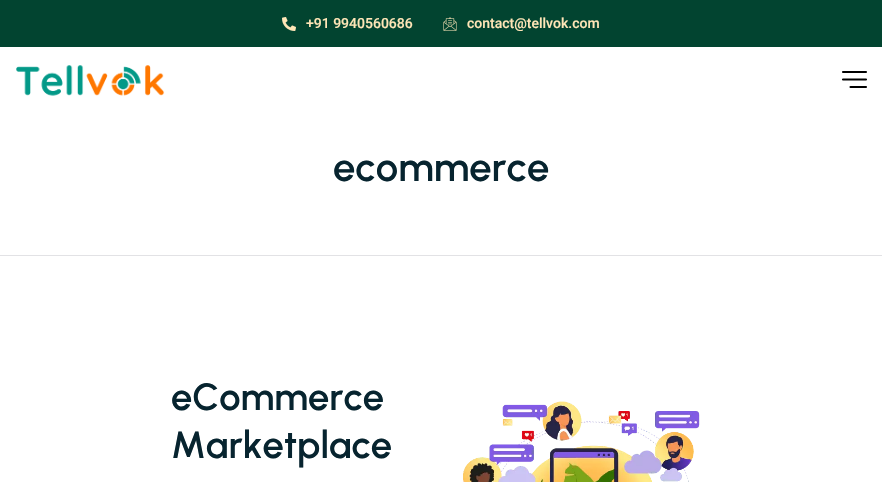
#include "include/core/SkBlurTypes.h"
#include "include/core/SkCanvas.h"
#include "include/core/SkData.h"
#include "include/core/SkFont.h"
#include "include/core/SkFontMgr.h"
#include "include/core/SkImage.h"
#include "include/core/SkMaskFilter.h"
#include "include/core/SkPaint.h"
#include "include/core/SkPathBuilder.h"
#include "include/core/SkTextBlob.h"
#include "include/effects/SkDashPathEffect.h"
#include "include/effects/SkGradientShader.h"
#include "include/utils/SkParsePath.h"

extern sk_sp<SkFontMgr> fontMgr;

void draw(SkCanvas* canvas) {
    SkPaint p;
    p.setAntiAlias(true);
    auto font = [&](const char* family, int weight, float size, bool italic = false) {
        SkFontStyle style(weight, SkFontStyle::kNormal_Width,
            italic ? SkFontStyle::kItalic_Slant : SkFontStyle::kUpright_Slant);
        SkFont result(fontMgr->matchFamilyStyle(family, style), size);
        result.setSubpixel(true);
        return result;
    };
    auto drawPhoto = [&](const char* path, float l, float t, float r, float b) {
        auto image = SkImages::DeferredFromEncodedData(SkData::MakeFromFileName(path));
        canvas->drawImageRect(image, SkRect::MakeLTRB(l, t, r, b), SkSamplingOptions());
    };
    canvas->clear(0xFFFFFFFF);
    p.setColor(0xFF024430);
    canvas->drawRect(SkRect::MakeLTRB(0, 0, 882, 47), p);
    drawPhoto("media/1.png", 282, 17, 296, 31);
    auto font1 = font("Roboto", 500, 14);
    p.setColor(0xFFFFE6B7);
    canvas->drawString("+91 9940560686", 306, 28, font1, p);
    drawPhoto("media/2.png", 443, 17, 457, 31);
    canvas->drawString("contact@tellvok.com", 467, 28, font1, p);
    drawPhoto("media/3.png", 16, 65, 165, 96);
    p.setStyle(SkPaint::kStroke_Style);
    p.setStrokeWidth(2.1f);
    p.setStrokeCap(SkPaint::kRound_Cap);
    p.setStrokeJoin(SkPaint::kRound_Join);
    p.setColor(0xFF000000);
    canvas->drawPath(SkPathBuilder().moveTo(843, 79.5f).lineTo(866, 79.5f).moveTo(843, 72).lineTo(866, 72).moveTo(850.5f, 87).lineTo(866, 87).detach(), p);
    p.setStyle(SkPaint::kFill_Style);
    p.setColor(0xFFE2E2E5);
    canvas->drawRect(SkRect::MakeLTRB(0, 255, 882, 256), p);
    auto font2 = font("Urbanist", 600, 40);
    p.setColor(0xFF07242F);
    canvas->drawString("ecommerce", 333, 181, font2, p);
    auto font3 = font("Urbanist", 600, 38);
    canvas->drawString("eCommerce", 171, 410, font3, p);
    canvas->drawString("Marketplace", 171, 458, font3, p);
    drawPhoto("media/4.png", 463, 401, 700, 482);
}
